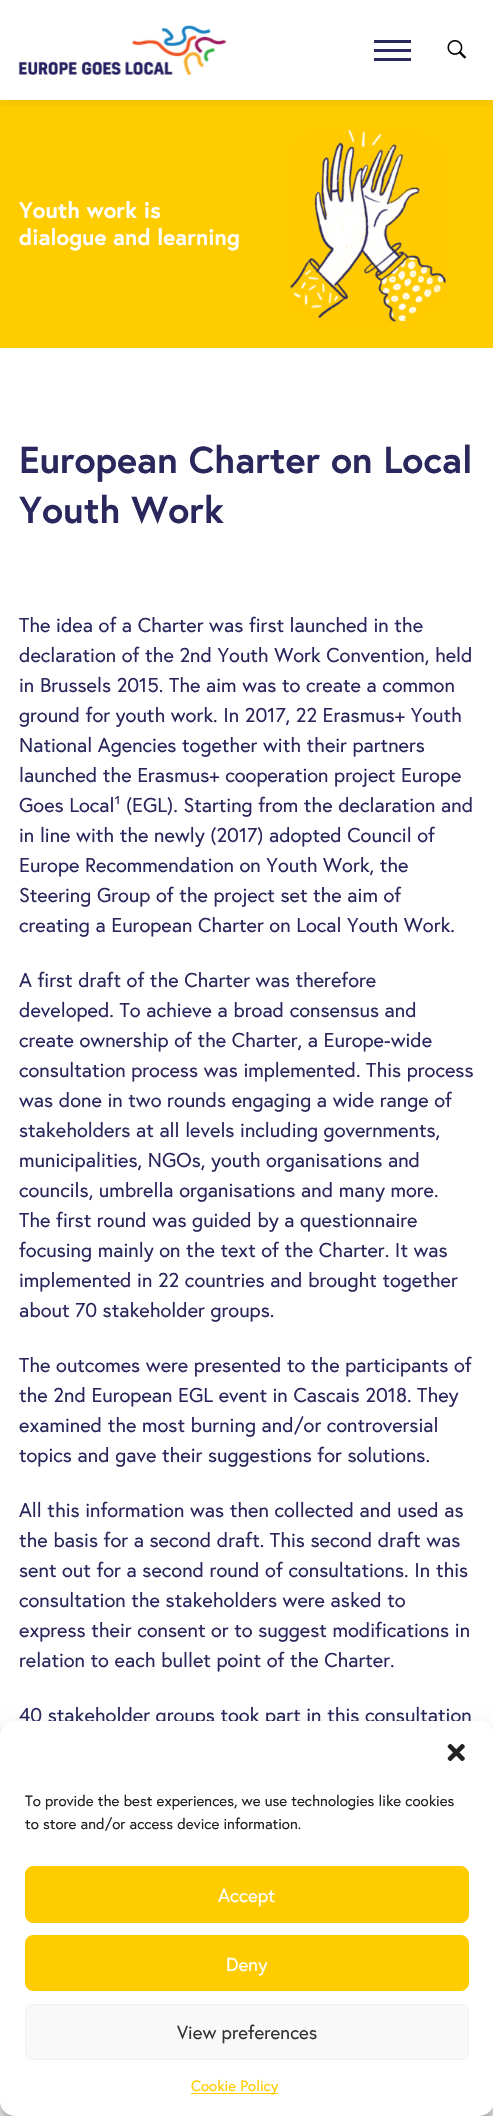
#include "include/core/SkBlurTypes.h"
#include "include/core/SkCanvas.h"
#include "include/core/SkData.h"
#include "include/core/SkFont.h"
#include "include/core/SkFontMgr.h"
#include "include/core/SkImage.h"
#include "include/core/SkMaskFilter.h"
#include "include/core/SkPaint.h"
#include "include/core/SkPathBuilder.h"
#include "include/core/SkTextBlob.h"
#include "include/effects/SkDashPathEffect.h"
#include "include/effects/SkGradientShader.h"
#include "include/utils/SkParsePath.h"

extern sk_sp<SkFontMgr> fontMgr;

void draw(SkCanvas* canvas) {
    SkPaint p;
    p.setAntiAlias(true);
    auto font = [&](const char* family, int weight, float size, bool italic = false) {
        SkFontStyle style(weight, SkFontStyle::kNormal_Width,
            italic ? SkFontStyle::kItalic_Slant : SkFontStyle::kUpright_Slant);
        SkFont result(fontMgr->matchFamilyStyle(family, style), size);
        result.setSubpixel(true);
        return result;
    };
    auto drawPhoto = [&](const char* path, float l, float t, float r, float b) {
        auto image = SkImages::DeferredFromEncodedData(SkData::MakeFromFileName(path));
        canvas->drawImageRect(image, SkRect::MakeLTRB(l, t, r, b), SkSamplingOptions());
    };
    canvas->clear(0xFFFFFFFF);
    p.setColor(0xFFFFCC00);
    canvas->drawRect(SkRect::MakeLTRB(0, 100, 493, 348), p);
    canvas->save();
    canvas->clipRect(SkRect::MakeLTRB(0, 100, 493, 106));
    p.setColor(0x1A000000);
    p.setMaskFilter(SkMaskFilter::MakeBlur(kNormal_SkBlurStyle, 9.5f));
    canvas->drawRect(SkRect::MakeLTRB(0, -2, 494, 98), p);
    p.setMaskFilter(nullptr);
    canvas->restore();
    drawPhoto("media/1.png", 18, 25, 227, 75);
    {
        const struct { float l, t, r, b; SkColor color; } items[] = {
            {374, 40, 411, 43, 0xFF2A275D},
            {374, 49, 411, 52, 0xFF2A275D},
            {374, 58, 411, 61, 0xFF2A275D},
        };
        for (auto [l, t, r, b, color] : items) {
            p.setColor(color);
            canvas->drawRect(SkRect::MakeLTRB(l, t, r, b), p);
        }
    }
    drawPhoto("media/2.png", 447, 40, 467, 59);
    auto font1 = font("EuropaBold", 700, 22.5f);
    p.setColor(0xFFFFFFFF);
    canvas->drawString("Youth work is", 19, 218, font1, p);
    canvas->drawString("dialogue and learning", 19, 245, font1, p);
    drawPhoto("media/3.png", 290, 129, 447, 323);
    auto font2 = font("EuropaBold", 700, 37.5f);
    p.setColor(0xFF2A275D);
    canvas->drawString("European Charter on Local", 19, 473, font2, p);
    canvas->drawString("Youth Work", 19, 523, font2, p);
    auto font3 = font("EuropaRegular", 400, 20);
    {
        const struct { const char* s; float x, y; } items[] = {
            {"The idea of a Charter was first launched in the", 19, 632},
            {"declaration of the 2nd Youth Work Convention, held", 19, 662},
            {"in Brussels 2015. The aim was to create a common", 19, 692},
            {"ground for youth work. In 2017, 22 Erasmus+ Youth", 19, 722},
            {"National Agencies together with their partners", 19, 752},
            {"launched the Erasmus+ cooperation project Europe", 19, 782},
            {"Goes Local¹ (EGL). Starting from the declaration and", 19, 812},
            {"in line with the newly (2017) adopted Council of", 19, 842},
            {"Europe Recommendation on Youth Work, the", 19, 872},
            {"Steering Group of the project set the aim of", 19, 902},
            {"creating a European Charter on Local Youth Work.", 19, 932},
            {"A first draft of the Charter was therefore", 19, 987},
            {"developed. To achieve a broad consensus and", 19, 1017},
            {"create ownership of the Charter, a Europe-wide", 19, 1047},
            {"consultation process was implemented. This process", 19, 1077},
            {"was done in two rounds engaging a wide range of", 19, 1107},
            {"stakeholders at all levels including governments,", 19, 1137},
            {"municipalities, NGOs, youth organisations and", 19, 1167},
            {"councils, umbrella organisations and many more.", 19, 1197},
            {"The first round was guided by a questionnaire", 19, 1227},
            {"focusing mainly on the text of the Charter. It was", 19, 1257},
            {"implemented in 22 countries and brought together", 19, 1287},
            {"about 70 stakeholder groups.", 19, 1317},
            {"The outcomes were presented to the participants of", 19, 1372},
            {"the 2nd European EGL event in Cascais 2018. They", 19, 1402},
            {"examined the most burning and/or controversial", 19, 1432},
            {"topics and gave their suggestions for solutions.", 19, 1462},
            {"All this information was then collected and used as", 19, 1517},
            {"the basis for a second draft. This second draft was", 19, 1547},
            {"sent out for a second round of consultations. In this", 19, 1577},
            {"consultation the stakeholders were asked to", 19, 1607},
            {"express their consent or to suggest modifications in", 19, 1637},
            {"relation to each bullet point of the Charter.", 19, 1667},
            {"40 stakeholder groups took part in this consultation", 19, 1722},
        };
        for (auto [s, x, y] : items) {
            canvas->drawString(s, x, y, font3, p);
        }
    }
    p.setColor(0x3B000000);
    p.setMaskFilter(SkMaskFilter::MakeBlur(kNormal_SkBlurStyle, 4));
    canvas->drawRoundRect(SkRect::MakeLTRB(0, 1729, 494, 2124), 15, 15, p);
    p.setMaskFilter(nullptr);
    p.setColor(0x30000000);
    p.setMaskFilter(SkMaskFilter::MakeBlur(kNormal_SkBlurStyle, 12.5f));
    canvas->drawRoundRect(SkRect::MakeLTRB(0, 1734, 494, 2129), 15, 15, p);
    p.setMaskFilter(nullptr);
    p.setColor(0xFFFFFFFF);
    canvas->drawRoundRect(SkRect::MakeLTRB(0, 1721, 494, 2116), 15, 15, p);
    drawPhoto("media/4.png", 447, 1743, 465, 1762);
    auto font4 = font("EuropaRegular", 400, 15);
    p.setColor(0xFF222222);
    canvas->drawString("To provide the best experiences, we use technologies like cookies", 25, 1806, font4, p);
    canvas->drawString("to store and/or access device information.", 25, 1829, font4, p);
    p.setColor(0xFFFFCC00);
    canvas->drawRoundRect(SkRect::MakeLTRB(25.5f, 1866.5f, 468.5f, 1922.5f), 7.5f, 7.5f, p);
    p.setStyle(SkPaint::kStroke_Style);
    p.setStrokeWidth(1);
    canvas->drawRoundRect(SkRect::MakeLTRB(25.5f, 1866.5f, 468.5f, 1922.5f), 7.5f, 7.5f, p);
    auto font5 = font("EuropaRegular", 400, 18.75f);
    p.setStyle(SkPaint::kFill_Style);
    p.setColor(0xFFFFFFFF);
    canvas->drawString("Accept", 218, 1902, font5, p);
    p.setColor(0xFFFFCC00);
    canvas->drawRoundRect(SkRect::MakeLTRB(25.5f, 1935.5f, 468.5f, 1990.5f), 7.5f, 7.5f, p);
    p.setStyle(SkPaint::kStroke_Style);
    canvas->drawRoundRect(SkRect::MakeLTRB(25.5f, 1935.5f, 468.5f, 1990.5f), 7.5f, 7.5f, p);
    p.setStyle(SkPaint::kFill_Style);
    p.setColor(0xFFFFFFFF);
    canvas->drawString("Deny", 226, 1971, font5, p);
    p.setColor(0xFFF9F9F9);
    canvas->drawRoundRect(SkRect::MakeLTRB(25.5f, 2004.5f, 468.5f, 2059.5f), 7.5f, 7.5f, p);
    p.setStyle(SkPaint::kStroke_Style);
    p.setColor(0xFFF2F2F2);
    canvas->drawRoundRect(SkRect::MakeLTRB(25.5f, 2004.5f, 468.5f, 2059.5f), 7.5f, 7.5f, p);
    p.setStyle(SkPaint::kFill_Style);
    p.setColor(0xFF333333);
    canvas->drawString("View preferences", 177, 2039, font5, p);
    p.setColor(0xFFFFCC00);
    canvas->drawRect(SkRect::MakeLTRB(191, 2093, 278, 2094), p);
    canvas->drawString("Cookie Policy", 191, 2091, font4, p);
}
